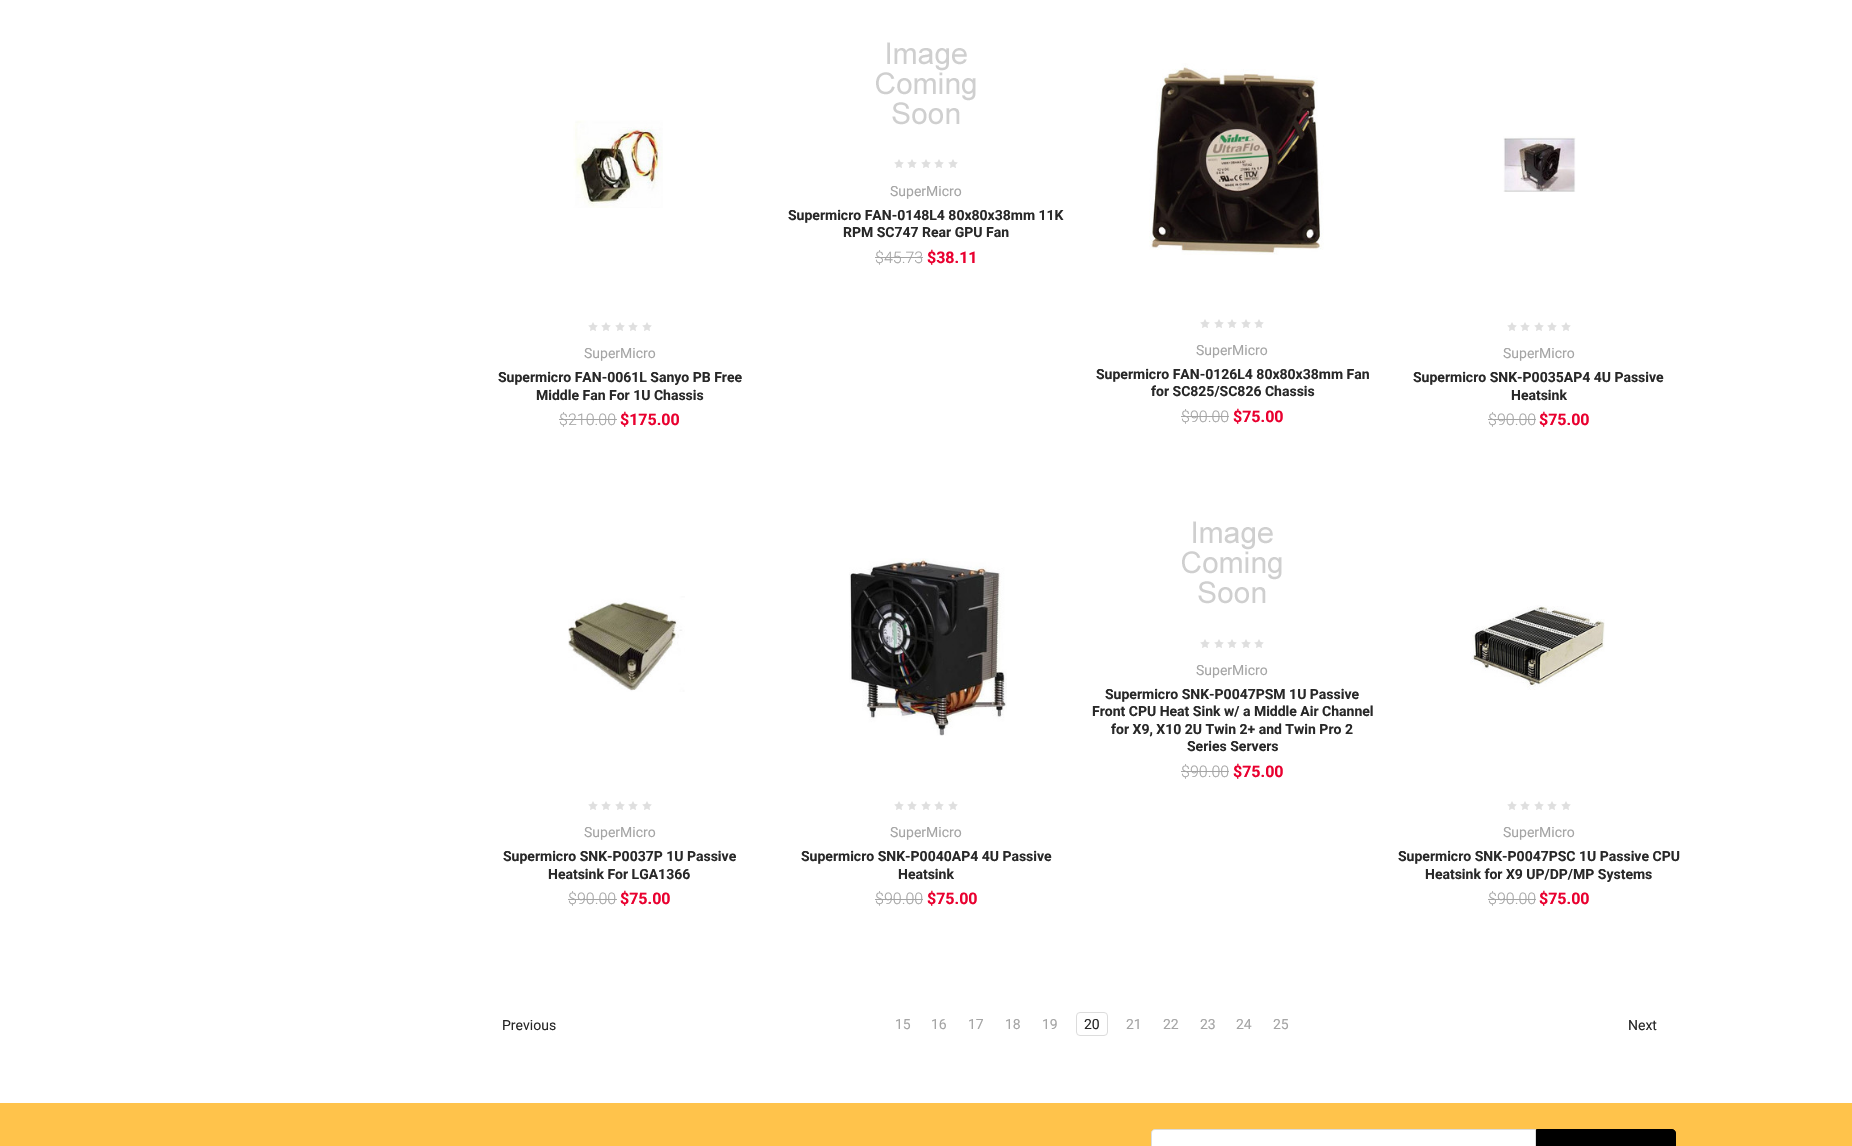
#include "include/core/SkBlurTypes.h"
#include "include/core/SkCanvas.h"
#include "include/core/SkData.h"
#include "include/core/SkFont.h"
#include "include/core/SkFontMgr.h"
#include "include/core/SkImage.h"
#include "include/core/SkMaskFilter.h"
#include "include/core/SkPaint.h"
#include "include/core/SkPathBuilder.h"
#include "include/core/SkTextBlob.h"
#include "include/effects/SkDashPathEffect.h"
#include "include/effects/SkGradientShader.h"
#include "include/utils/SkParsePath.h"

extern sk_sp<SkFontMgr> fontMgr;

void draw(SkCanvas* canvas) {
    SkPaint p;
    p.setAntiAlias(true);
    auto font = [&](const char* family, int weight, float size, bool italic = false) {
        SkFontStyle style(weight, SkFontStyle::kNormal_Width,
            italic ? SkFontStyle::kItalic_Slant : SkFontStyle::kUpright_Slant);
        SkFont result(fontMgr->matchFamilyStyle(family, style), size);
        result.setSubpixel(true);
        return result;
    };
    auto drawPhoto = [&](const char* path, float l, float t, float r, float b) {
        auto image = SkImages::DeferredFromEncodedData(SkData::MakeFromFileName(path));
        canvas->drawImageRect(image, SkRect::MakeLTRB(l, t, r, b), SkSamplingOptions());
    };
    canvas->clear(0xFFFFFFFF);
    drawPhoto("media/1.png", 876, 42, 976, 125);
    drawPhoto("media/2.png", 894, 159, 904, 168);
    drawPhoto("media/2.png", 907, 159, 917, 168);
    drawPhoto("media/2.png", 921, 159, 931, 168);
    drawPhoto("media/2.png", 934, 159, 944, 168);
    drawPhoto("media/2.png", 948, 159, 958, 168);
    auto font1 = font("Roboto", 400, 14);
    p.setColor(0xFFA5A5A5);
    canvas->drawString("SuperMicro", 890, 196, font1, p);
    auto font2 = font("Roboto", 700, 14);
    p.setColor(0xFF282828);
    canvas->drawString("Supermicro FAN-0148L4 80x80x38mm 11K", 788, 220, font2, p);
    canvas->drawString("RPM SC747 Rear GPU Fan", 843, 237, font2, p);
    auto font3 = font("Roboto", 300, 16);
    p.setColor(0xFFA5A5A5);
    canvas->drawString("$45.73", 875, 263, font3, p);
    canvas->drawRect(SkRect::MakeLTRB(875, 257, 923, 258), p);
    auto font4 = font("Roboto", 700, 16);
    p.setColor(0xFFE9002F);
    canvas->drawString("$38.11", 927, 263, font4, p);
    drawPhoto("media/3.png", 573, 120, 663, 208);
    drawPhoto("media/2.png", 588, 322, 598, 331);
    drawPhoto("media/2.png", 601, 322, 611, 331);
    drawPhoto("media/2.png", 615, 322, 625, 331);
    drawPhoto("media/2.png", 628, 322, 638, 331);
    drawPhoto("media/2.png", 642, 322, 652, 331);
    p.setColor(0xFFA5A5A5);
    canvas->drawString("SuperMicro", 584, 358, font1, p);
    p.setColor(0xFF282828);
    canvas->drawString("Supermicro FAN-0061L Sanyo PB Free", 498, 382, font2, p);
    canvas->drawString("Middle Fan For 1U Chassis", 536, 400, font2, p);
    p.setColor(0xFFA5A5A5);
    canvas->drawString("$210.00", 559, 425, font3, p);
    canvas->drawRect(SkRect::MakeLTRB(559, 419, 617, 420), p);
    p.setColor(0xFFE9002F);
    canvas->drawString("$175.00", 620, 425, font4, p);
    drawPhoto("media/4.png", 1149, 63, 1324, 255);
    drawPhoto("media/2.png", 1200, 319, 1210, 328);
    drawPhoto("media/2.png", 1214, 319, 1224, 328);
    drawPhoto("media/2.png", 1227, 319, 1237, 328);
    drawPhoto("media/2.png", 1241, 319, 1251, 328);
    drawPhoto("media/2.png", 1254, 319, 1264, 328);
    p.setColor(0xFFA5A5A5);
    canvas->drawString("SuperMicro", 1196, 355, font1, p);
    p.setColor(0xFF282828);
    canvas->drawString("Supermicro FAN-0126L4 80x80x38mm Fan", 1096, 379, font2, p);
    canvas->drawString("for SC825/SC826 Chassis", 1151, 396, font2, p);
    p.setColor(0xFFA5A5A5);
    canvas->drawString("$90.00", 1181, 422, font3, p);
    canvas->drawRect(SkRect::MakeLTRB(1181, 416, 1229, 417), p);
    p.setColor(0xFFE9002F);
    canvas->drawString("$75.00", 1233, 422, font4, p);
    drawPhoto("media/5.png", 1503, 136, 1576, 192);
    drawPhoto("media/2.png", 1507, 322, 1517, 331);
    drawPhoto("media/2.png", 1520, 322, 1530, 331);
    drawPhoto("media/2.png", 1534, 322, 1544, 331);
    drawPhoto("media/2.png", 1547, 322, 1557, 331);
    drawPhoto("media/2.png", 1561, 322, 1571, 331);
    p.setColor(0xFFA5A5A5);
    canvas->drawString("SuperMicro", 1503, 358, font1, p);
    p.setColor(0xFF282828);
    canvas->drawString("Supermicro SNK-P0035AP4 4U Passive", 1413, 382, font2, p);
    canvas->drawString("Heatsink", 1511, 400, font2, p);
    p.setColor(0xFFA5A5A5);
    canvas->drawString("$90.00", 1488, 425, font3, p);
    canvas->drawRect(SkRect::MakeLTRB(1488, 419, 1536, 420), p);
    p.setColor(0xFFE9002F);
    canvas->drawString("$75.00", 1539, 425, font4, p);
    drawPhoto("media/1.png", 1182, 521, 1282, 604);
    drawPhoto("media/2.png", 1200, 639, 1210, 648);
    drawPhoto("media/2.png", 1214, 639, 1224, 648);
    drawPhoto("media/2.png", 1227, 639, 1237, 648);
    drawPhoto("media/2.png", 1241, 639, 1251, 648);
    drawPhoto("media/2.png", 1254, 639, 1264, 648);
    p.setColor(0xFFA5A5A5);
    canvas->drawString("SuperMicro", 1196, 675, font1, p);
    p.setColor(0xFF282828);
    {
        const struct { const char* s; float x, y; } items[] = {
            {"Supermicro SNK-P0047PSM 1U Passive", 1105, 699},
            {"Front CPU Heat Sink w/ a Middle Air Channel", 1092, 716},
            {"for X9, X10 2U Twin 2+ and Twin Pro 2", 1111, 734},
            {"Series Servers", 1187, 751},
        };
        for (auto [s, x, y] : items) {
            canvas->drawString(s, x, y, font2, p);
        }
    }
    p.setColor(0xFFA5A5A5);
    canvas->drawString("$90.00", 1181, 777, font3, p);
    canvas->drawRect(SkRect::MakeLTRB(1181, 771, 1229, 772), p);
    p.setColor(0xFFE9002F);
    canvas->drawString("$75.00", 1233, 777, font4, p);
    drawPhoto("media/6.png", 568, 596, 685, 692);
    drawPhoto("media/2.png", 588, 801, 598, 810);
    drawPhoto("media/2.png", 601, 801, 611, 810);
    drawPhoto("media/2.png", 615, 801, 625, 810);
    drawPhoto("media/2.png", 628, 801, 638, 810);
    drawPhoto("media/2.png", 642, 801, 652, 810);
    p.setColor(0xFFA5A5A5);
    canvas->drawString("SuperMicro", 584, 837, font1, p);
    p.setColor(0xFF282828);
    canvas->drawString("Supermicro SNK-P0037P 1U Passive", 503, 861, font2, p);
    canvas->drawString("Heatsink For LGA1366", 548, 879, font2, p);
    p.setColor(0xFFA5A5A5);
    canvas->drawString("$90.00", 568, 904, font3, p);
    canvas->drawRect(SkRect::MakeLTRB(568, 899, 617, 900), p);
    p.setColor(0xFFE9002F);
    canvas->drawString("$75.00", 620, 904, font4, p);
    drawPhoto("media/7.png", 849, 558, 1007, 736);
    drawPhoto("media/2.png", 894, 801, 904, 810);
    drawPhoto("media/2.png", 907, 801, 917, 810);
    drawPhoto("media/2.png", 921, 801, 931, 810);
    drawPhoto("media/2.png", 934, 801, 944, 810);
    drawPhoto("media/2.png", 948, 801, 958, 810);
    p.setColor(0xFFA5A5A5);
    canvas->drawString("SuperMicro", 890, 837, font1, p);
    p.setColor(0xFF282828);
    canvas->drawString("Supermicro SNK-P0040AP4 4U Passive", 801, 861, font2, p);
    canvas->drawString("Heatsink", 898, 879, font2, p);
    p.setColor(0xFFA5A5A5);
    canvas->drawString("$90.00", 875, 904, font3, p);
    canvas->drawRect(SkRect::MakeLTRB(875, 899, 923, 900), p);
    p.setColor(0xFFE9002F);
    canvas->drawString("$75.00", 927, 904, font4, p);
    drawPhoto("media/8.png", 1470, 605, 1605, 690);
    drawPhoto("media/2.png", 1507, 801, 1517, 810);
    drawPhoto("media/2.png", 1520, 801, 1530, 810);
    drawPhoto("media/2.png", 1534, 801, 1544, 810);
    drawPhoto("media/2.png", 1547, 801, 1557, 810);
    drawPhoto("media/2.png", 1561, 801, 1571, 810);
    p.setColor(0xFFA5A5A5);
    canvas->drawString("SuperMicro", 1503, 837, font1, p);
    p.setColor(0xFF282828);
    canvas->drawString("Supermicro SNK-P0047PSC 1U Passive CPU", 1398, 861, font2, p);
    canvas->drawString("Heatsink for X9 UP/DP/MP Systems", 1425, 879, font2, p);
    p.setColor(0xFFA5A5A5);
    canvas->drawString("$90.00", 1488, 904, font3, p);
    canvas->drawRect(SkRect::MakeLTRB(1488, 899, 1536, 900), p);
    p.setColor(0xFFE9002F);
    canvas->drawString("$75.00", 1539, 904, font4, p);
    p.setColor(0xFF282828);
    canvas->drawString("Previous", 502, 1030, font1, p);
    p.setColor(0xFFA5A5A5);
    {
        const struct { const char* s; float x, y; } items[] = {
            {"15", 895, 1029},
            {"16", 931, 1029},
            {"17", 968, 1029},
            {"18", 1005, 1029},
            {"19", 1042, 1029},
        };
        for (auto [s, x, y] : items) {
            canvas->drawString(s, x, y, font1, p);
        }
    }
    p.setStyle(SkPaint::kStroke_Style);
    p.setStrokeWidth(1);
    p.setColor(0xFFDCDCDC);
    canvas->drawRoundRect(SkRect::MakeLTRB(1076.5f, 1012.5f, 1107.5f, 1035.5f), 3.5f, 3.5f, p);
    p.setStyle(SkPaint::kFill_Style);
    p.setColor(0xFF282828);
    canvas->drawString("20", 1084, 1029, font1, p);
    p.setColor(0xFFA5A5A5);
    {
        const struct { const char* s; float x, y; } items[] = {
            {"21", 1126, 1029},
            {"22", 1163, 1029},
            {"23", 1200, 1029},
            {"24", 1236, 1029},
            {"25", 1273, 1029},
        };
        for (auto [s, x, y] : items) {
            canvas->drawString(s, x, y, font1, p);
        }
    }
    p.setColor(0xFF282828);
    canvas->drawString("Next", 1628, 1030, font1, p);
    p.setColor(0xFFFFC34B);
    canvas->drawRect(SkRect::MakeLTRB(0, 1103, 1852, 1146), p);
    p.setColor(0xFFFFFFFF);
    canvas->drawPath(SkPathBuilder().moveTo(1155, 1129.5f).lineTo(1535.5f, 1129.5f).lineTo(1535.5f, 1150.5f).lineTo(1155, 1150.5f).cubicTo(1153, 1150.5f, 1151.5f, 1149, 1151.5f, 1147).lineTo(1151.5f, 1133).cubicTo(1151.5f, 1131, 1153, 1129.5f, 1155, 1129.5f).close().detach(), p);
    p.setStyle(SkPaint::kStroke_Style);
    p.setColor(0xFFDCDCDC);
    canvas->drawPath(SkPathBuilder().moveTo(1155, 1129.5f).lineTo(1535.5f, 1129.5f).lineTo(1535.5f, 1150.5f).lineTo(1155, 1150.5f).cubicTo(1153, 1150.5f, 1151.5f, 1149, 1151.5f, 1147).lineTo(1151.5f, 1133).cubicTo(1151.5f, 1131, 1153, 1129.5f, 1155, 1129.5f).close().detach(), p);
    p.setStyle(SkPaint::kFill_Style);
    p.setColor(0xFF000000);
    canvas->drawPath(SkPathBuilder().moveTo(1536.5f, 1129.5f).lineTo(1672, 1129.5f).cubicTo(1674, 1129.5f, 1675.5f, 1131, 1675.5f, 1133).lineTo(1675.5f, 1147).cubicTo(1675.5f, 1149, 1674, 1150.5f, 1672, 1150.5f).lineTo(1536.5f, 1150.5f).close().detach(), p);
    p.setStyle(SkPaint::kStroke_Style);
    canvas->drawPath(SkPathBuilder().moveTo(1536.5f, 1129.5f).lineTo(1672, 1129.5f).cubicTo(1674, 1129.5f, 1675.5f, 1131, 1675.5f, 1133).lineTo(1675.5f, 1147).cubicTo(1675.5f, 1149, 1674, 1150.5f, 1672, 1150.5f).lineTo(1536.5f, 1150.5f).close().detach(), p);
}
